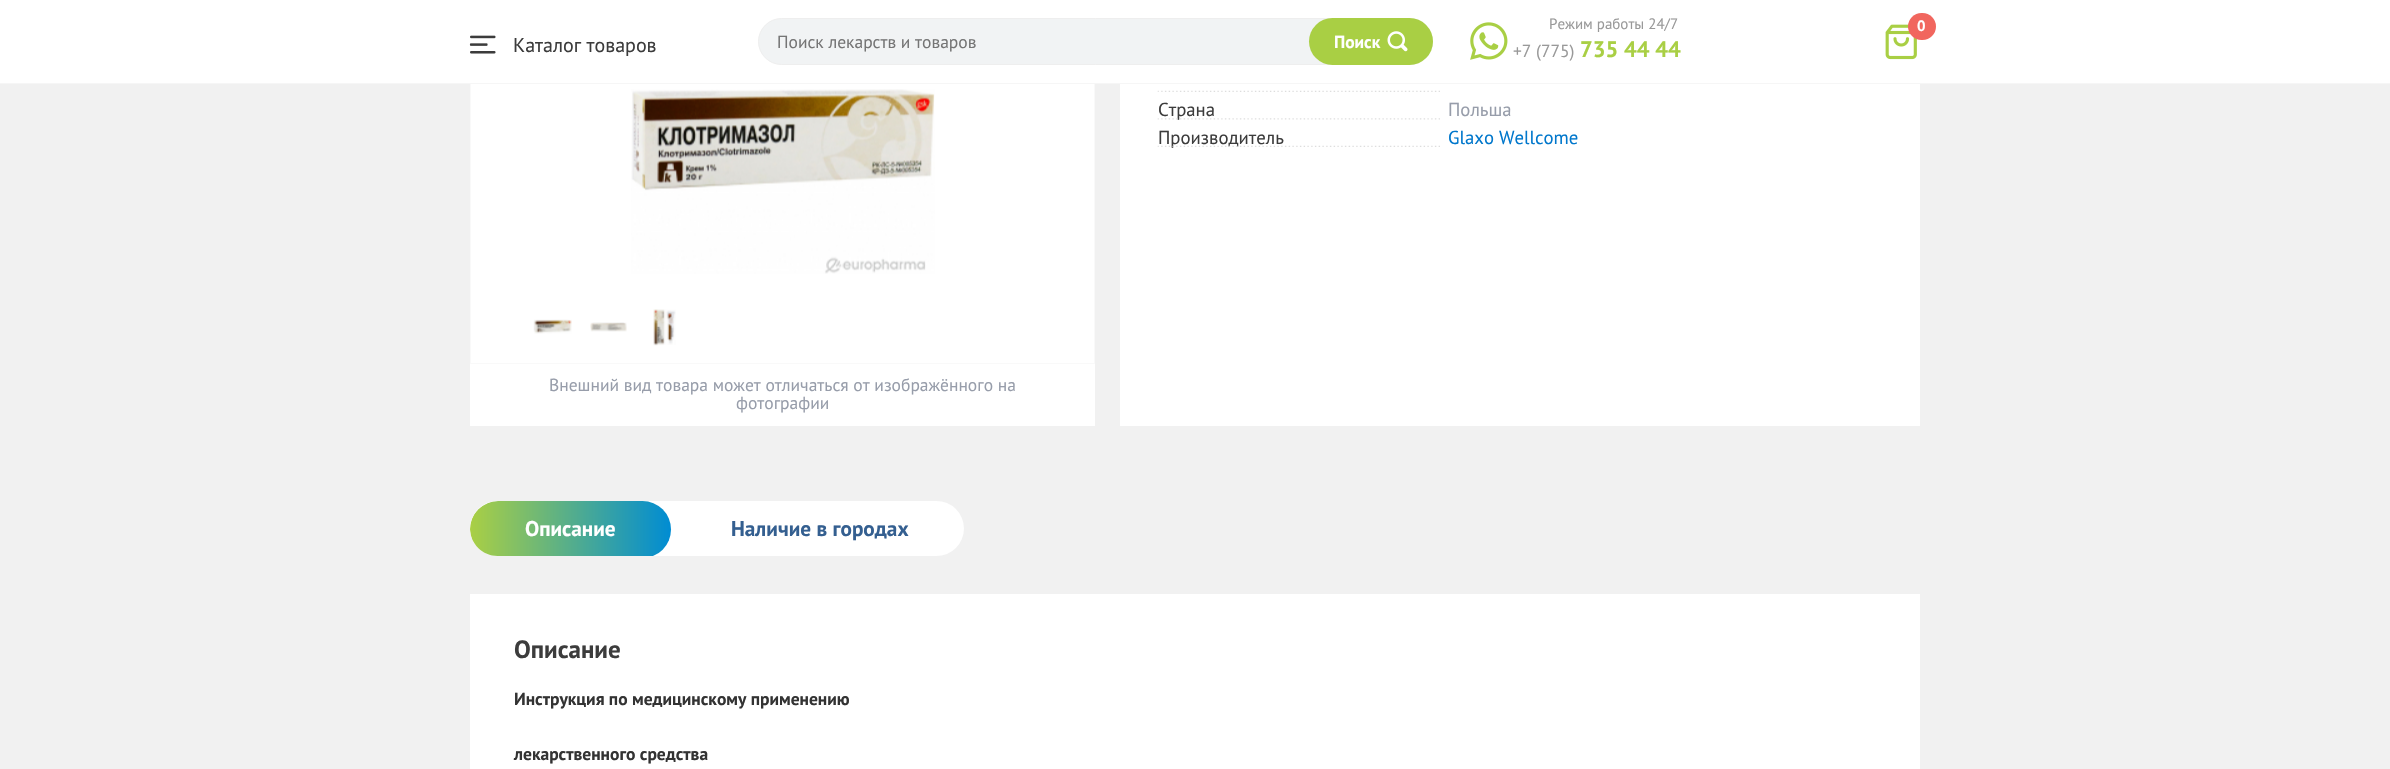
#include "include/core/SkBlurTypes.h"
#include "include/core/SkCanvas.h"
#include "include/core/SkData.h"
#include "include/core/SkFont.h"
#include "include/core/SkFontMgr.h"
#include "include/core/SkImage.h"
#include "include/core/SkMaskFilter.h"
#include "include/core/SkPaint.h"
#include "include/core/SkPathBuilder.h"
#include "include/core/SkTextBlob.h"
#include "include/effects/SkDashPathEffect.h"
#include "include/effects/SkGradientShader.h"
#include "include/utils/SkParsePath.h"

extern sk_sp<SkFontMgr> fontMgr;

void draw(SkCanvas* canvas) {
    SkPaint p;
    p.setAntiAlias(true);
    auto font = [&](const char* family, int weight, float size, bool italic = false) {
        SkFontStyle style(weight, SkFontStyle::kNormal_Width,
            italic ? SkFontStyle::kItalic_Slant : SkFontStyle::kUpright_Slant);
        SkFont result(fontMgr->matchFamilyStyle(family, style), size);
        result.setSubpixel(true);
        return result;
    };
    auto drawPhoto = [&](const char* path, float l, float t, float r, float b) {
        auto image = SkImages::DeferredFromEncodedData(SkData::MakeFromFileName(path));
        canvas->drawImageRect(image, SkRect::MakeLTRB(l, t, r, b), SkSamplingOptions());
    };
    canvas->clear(0xFFF1F1F1);
    p.setColor(0xFFFFFFFF);
    canvas->drawRect(SkRect::MakeLTRB(470, 84, 1095, 426), p);
    p.setStyle(SkPaint::kStroke_Style);
    p.setStrokeWidth(1);
    p.setColor(0xFFF9F9F9);
    canvas->drawRect(SkRect::MakeLTRB(470.5f, -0.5f, 1094.5f, 363.5f), p);
    p.setStyle(SkPaint::kFill_Style);
    p.setColor(0xFFFFFFFF);
    canvas->drawRect(SkRect::MakeLTRB(0, 0, 2390, 83), p);
    p.setColor(0xFFF6F6F6);
    canvas->drawRect(SkRect::MakeLTRB(0, 83, 2390, 84), p);
    drawPhoto("media/1.png", 1470, 22, 1508, 60);
    auto font1 = font("PT Sans", 400, 15);
    p.setColor(0xFF999999);
    canvas->drawString("Режим работы 24/7", 1549, 29, font1, p);
    auto font2 = font("PT Sans", 400, 17.5f);
    canvas->drawString("+7 (775)", 1513, 57, font2, p);
    auto font3 = font("PT Sans", 700, 22.5f);
    p.setColor(0xFFA9CF44);
    canvas->drawString("735 44 44", 1580, 57, font3, p);
    drawPhoto("media/2.png", 1885, 24, 1917, 60);
    p.setColor(0xFFF1665E);
    canvas->drawRoundRect(SkRect::MakeLTRB(1908, 13, 1936, 40), 13.5f, 13.5f, p);
    auto font4 = font("PT Sans", 700, 15);
    p.setColor(0xFFFFFFFF);
    canvas->drawString("0", 1917, 31, font4, p);
    drawPhoto("media/3.png", 469, 35, 496, 54);
    auto font5 = font("PT Sans", 400, 20);
    p.setColor(0xFF3C3C3C);
    canvas->drawString("Каталог товаров", 513, 52, font5, p);
    p.setColor(0xFFF1F3F4);
    canvas->drawRoundRect(SkRect::MakeLTRB(758.5f, 18.5f, 1432.5f, 64.5f), 23, 23, p);
    p.setStyle(SkPaint::kStroke_Style);
    p.setColor(0xFFEEEEEE);
    canvas->drawRoundRect(SkRect::MakeLTRB(758.5f, 18.5f, 1432.5f, 64.5f), 23, 23, p);
    p.setStyle(SkPaint::kFill_Style);
    p.setColor(0xFF757575);
    canvas->drawString("Поиск лекарств и товаров", 777, 48, font2, p);
    p.setColor(0xFFA9CF44);
    canvas->drawRoundRect(SkRect::MakeLTRB(1309, 18, 1433, 65), 23.5f, 23.5f, p);
    auto font6 = font("PT Sans", 700, 17.5f);
    p.setColor(0xFFFFFFFF);
    canvas->drawString("Поиск", 1334, 48, font6, p);
    drawPhoto("media/4.png", 1387, 31, 1408, 52);
    canvas->drawRect(SkRect::MakeLTRB(1120, 84, 1920, 426), p);
    drawPhoto("media/5.png", 1157, 90, 1440, 92);
    auto font7 = font("PT Sans", 400, 18.75f);
    p.setColor(0xFF3C3C3C);
    canvas->drawString("Страна", 1158, 116, font7, p);
    drawPhoto("media/6.png", 1157, 118, 1440, 120);
    p.setColor(0xFF979DAA);
    canvas->drawString("Польша", 1448, 116, font7, p);
    p.setColor(0xFF3C3C3C);
    canvas->drawString("Производитель", 1158, 144, font7, p);
    drawPhoto("media/7.png", 1157, 145, 1440, 147);
    p.setColor(0xFF0077CC);
    canvas->drawString("Glaxo Wellcome", 1448, 144, font7, p);
    drawPhoto("media/8.png", 631, 89, 935, 274);
    drawPhoto("media/9.png", 533, 319, 572, 334);
    drawPhoto("media/10.png", 590, 322, 627, 332);
    drawPhoto("media/11.png", 653, 309, 676, 346);
    p.setColor(0xFF979DAA);
    canvas->drawString("Внешний вид товара может отличаться от изображённого на", 549, 391, font2, p);
    canvas->drawString("фотографии", 736, 409, font2, p);
    p.setColor(0xFFFFFFFF);
    canvas->drawRoundRect(SkRect::MakeLTRB(470, 501, 964, 556), 27.5f, 27.5f, p);
    canvas->save();
    canvas->clipPath(SkPathBuilder().moveTo(497.5f, 501).lineTo(936.5f, 501).cubicTo(951.5f, 501, 964, 513.5f, 964, 528.5f).cubicTo(964, 543.5f, 951.5f, 556, 936.5f, 556).lineTo(497.5f, 556).cubicTo(482.5f, 556, 470, 543.5f, 470, 528.5f).cubicTo(470, 513.5f, 482.5f, 501, 497.5f, 501).close().detach(), true);
    {
        const SkColor colors[] = {0xFFAACF44, 0xFF008CD3};
        const float stops[] = {0, 1};
        const SkPoint ends[] = {{470, 529}, {671, 529}};
        p.setShader(SkGradientShader::MakeLinear(ends, colors, stops, 2, SkTileMode::kClamp));
        p.setAlpha(255);
    }
    canvas->drawRoundRect(SkRect::MakeLTRB(470, 501, 671, 558), 28.5f, 28.5f, p);
    canvas->restore();
    auto font8 = font("PT Sans", 700, 21.25f);
    p.setShader(nullptr);
    p.setColor(0xFFFFFFFF);
    canvas->drawString("Описание", 525, 536, font8, p);
    p.setColor(0xFF345F90);
    canvas->drawString("Наличие в городах", 731, 536, font8, p);
    p.setColor(0xFFFFFFFF);
    canvas->drawRect(SkRect::MakeLTRB(470, 594, 1920, 769), p);
    auto font9 = font("PT Sans", 700, 25);
    p.setColor(0xFF3C3C3C);
    canvas->drawString("Описание", 514, 658, font9, p);
    p.setColor(0xFF333333);
    canvas->drawString("Инструкция по медицинскому применению", 514, 705, font6, p);
    canvas->drawString("лекарственного средства", 514, 760, font6, p);
}
